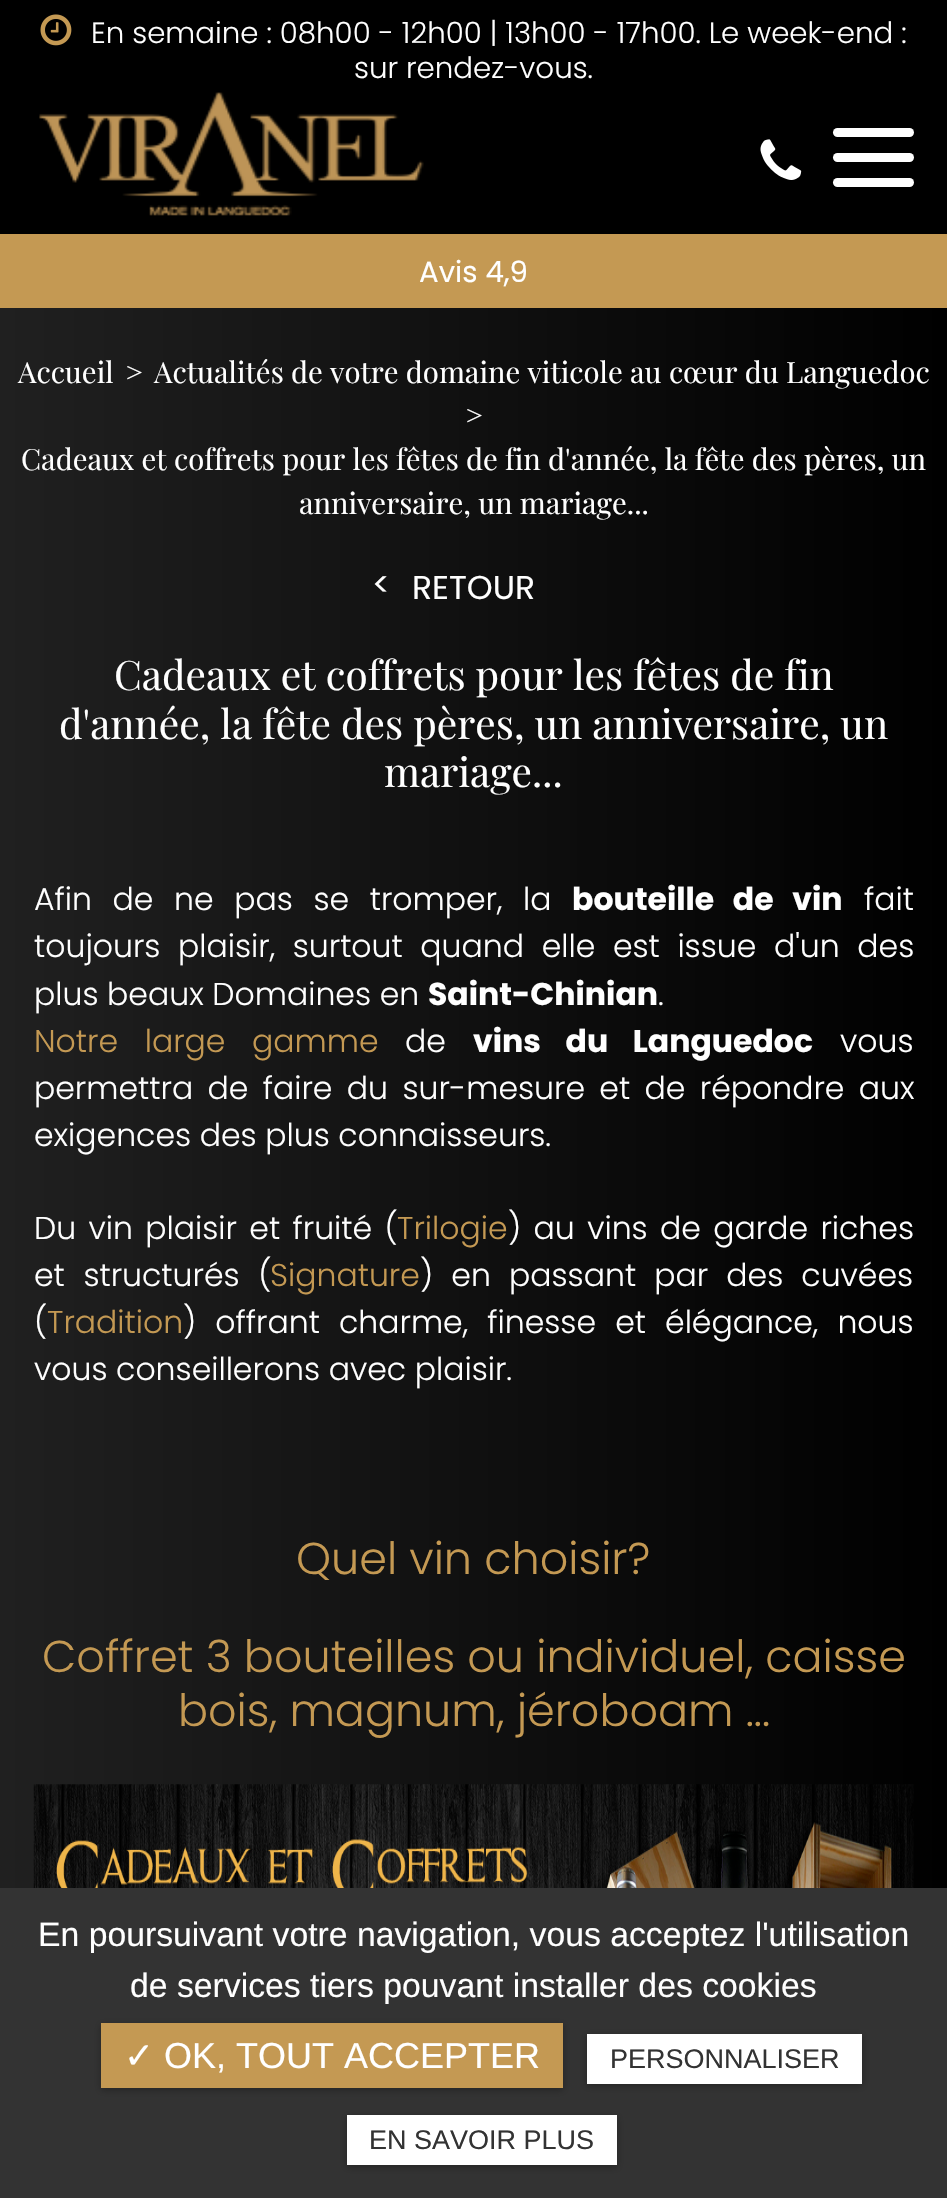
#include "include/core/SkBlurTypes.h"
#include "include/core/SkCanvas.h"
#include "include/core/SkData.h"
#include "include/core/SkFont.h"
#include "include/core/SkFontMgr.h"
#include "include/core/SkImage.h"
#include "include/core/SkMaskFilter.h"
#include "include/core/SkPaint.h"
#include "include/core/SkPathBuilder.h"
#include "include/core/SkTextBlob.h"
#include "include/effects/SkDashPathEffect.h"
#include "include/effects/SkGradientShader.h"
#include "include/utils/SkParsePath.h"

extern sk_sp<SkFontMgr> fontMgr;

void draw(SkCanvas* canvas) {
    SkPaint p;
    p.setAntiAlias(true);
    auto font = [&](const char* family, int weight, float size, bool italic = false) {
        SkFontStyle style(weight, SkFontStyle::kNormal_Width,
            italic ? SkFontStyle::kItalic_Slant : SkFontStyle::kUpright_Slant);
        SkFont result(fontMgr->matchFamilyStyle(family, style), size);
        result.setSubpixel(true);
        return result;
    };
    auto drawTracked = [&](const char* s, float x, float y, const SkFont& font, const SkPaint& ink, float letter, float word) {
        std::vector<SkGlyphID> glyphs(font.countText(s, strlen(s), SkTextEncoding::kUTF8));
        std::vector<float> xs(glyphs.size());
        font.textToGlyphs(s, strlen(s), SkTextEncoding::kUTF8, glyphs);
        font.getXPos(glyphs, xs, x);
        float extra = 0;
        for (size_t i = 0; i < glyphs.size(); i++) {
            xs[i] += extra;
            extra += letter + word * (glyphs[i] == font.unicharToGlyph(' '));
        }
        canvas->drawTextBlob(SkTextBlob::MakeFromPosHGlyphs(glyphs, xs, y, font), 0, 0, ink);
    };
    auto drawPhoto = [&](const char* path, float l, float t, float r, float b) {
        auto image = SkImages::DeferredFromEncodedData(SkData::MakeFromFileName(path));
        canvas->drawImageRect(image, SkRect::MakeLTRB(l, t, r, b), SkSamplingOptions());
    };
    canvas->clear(0xFFFFFFFF);
    p.setColor(0xFF000000);
    canvas->drawRect(SkRect::MakeLTRB(0, 0, 947, 234), p);
    drawPhoto("media/1.png", 40, 14, 72, 46);
    auto font1 = font("Poppins", 300, 29.25f);
    p.setColor(0xFFFFFFFF);
    canvas->drawString("En semaine : 08h00 - 12h00 | 13h00 - 17h00. Le week-end :", 91, 43, font1, p);
    canvas->drawString("sur rendez-vous.", 354, 78, font1, p);
    drawPhoto("media/2.png", 39, 92, 424, 216);
    drawPhoto("media/3.png", 760, 139, 802, 180);
    canvas->drawRoundRect(SkRect::MakeLTRB(833, 128, 914, 137), 4.5f, 4.5f, p);
    canvas->drawRoundRect(SkRect::MakeLTRB(833, 153, 914, 162), 4.5f, 4.5f, p);
    canvas->drawRoundRect(SkRect::MakeLTRB(833, 178, 914, 187), 4.5f, 4.5f, p);
    p.setColor(0xFFC49953);
    canvas->drawRect(SkRect::MakeLTRB(0, 234, 947, 308), p);
    auto font2 = font("Poppins", 400, 29.25f);
    p.setColor(0xFFFFFFFF);
    canvas->drawString("Avis 4,9", 419, 282, font2, p);
    {
        const SkColor colors[] = {0xFF202020, 0xFF000000};
        const float stops[] = {0, 1};
        const SkPoint ends[] = {{0, 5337}, {947, 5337}};
        p.setShader(SkGradientShader::MakeLinear(ends, colors, stops, 2, SkTileMode::kClamp));
        p.setAlpha(255);
    }
    canvas->drawRect(SkRect::MakeLTRB(0, 308, 947, 1888), p);
    auto font3 = font("Playfair Display", 400, 29.25f);
    p.setShader(nullptr);
    p.setColor(0xFFFFFFFF);
    {
        const struct { const char* s; float x, y; } items[] = {
            {"Accueil", 18, 383},
            {">", 125, 383},
            {"Actualités de votre domaine viticole au cœur du Languedoc", 154, 383},
            {">", 465, 426},
            {"Cadeaux et coffrets pour les fêtes de fin d'année, la fête des pères, un", 21, 470},
            {"anniversaire, un mariage...", 299, 514},
        };
        for (auto [s, x, y] : items) {
            canvas->drawString(s, x, y, font3, p);
        }
    }
    auto font4 = font("Poppins", 400, 33);
    canvas->drawString("<", 372, 596, font4, p);
    canvas->drawString("RETOUR", 412, 599, font4, p);
    auto font5 = font("Playfair Display", 400, 40.5f);
    {
        const struct { const char* s; float x, y; } items[] = {
            {"Cadeaux et coffrets pour les fêtes de fin", 114, 690},
            {"d'année, la fête des pères, un anniversaire, un", 59, 739},
            {"mariage...", 384, 787},
        };
        for (auto [s, x, y] : items) {
            canvas->drawString(s, x, y, font5, p);
        }
    }
    auto font6 = font("Poppins", 300, 31.5f);
    drawTracked("Afin de ne pas se tromper, la", 34, 910, font6, p, 0, 12);
    auto font7 = font("Poppins", 700, 31.5f);
    drawTracked("bouteille de vin", 572, 910, font7, p, 0, 12);
    canvas->drawString("fait", 864, 910, font6, p);
    drawTracked("toujours plaisir, surtout quand elle est issue d'un des", 34, 957, font6, p, 0, 9);
    canvas->drawString("plus beaux Domaines en", 34, 1005, font6, p);
    canvas->drawString("Saint-Chinian", 428, 1005, font7, p);
    canvas->drawString(".", 658, 1005, font6, p);
    p.setColor(0xFFC49953);
    drawTracked("Notre large gamme", 34, 1052, font6, p, 0, 18);
    p.setColor(0xFFFFFFFF);
    canvas->drawString("de", 405, 1052, font6, p);
    drawTracked("vins du Languedoc", 473, 1052, font7, p, 0, 18);
    canvas->drawString("vous", 840, 1052, font6, p);
    drawTracked("permettra de faire du sur-mesure et de répondre aux", 34, 1099, font6, p, 0, 5.75f);
    canvas->drawString("exigences des plus connaisseurs.", 34, 1146, font6, p);
    drawTracked("Du vin plaisir et fruité (", 34, 1239, font6, p, 0, 3.75f);
    p.setColor(0xFFC49953);
    canvas->drawString("Trilogie", 397, 1239, font6, p);
    p.setColor(0xFFFFFFFF);
    drawTracked(") au vins de garde riches", 508, 1239, font6, p, 0, 3.75f);
    drawTracked("et structurés (", 34, 1286, font6, p, 0, 10);
    p.setColor(0xFFC49953);
    canvas->drawString("Signature", 270, 1286, font6, p);
    p.setColor(0xFFFFFFFF);
    drawTracked(") en passant par des cuvées", 420, 1286, font6, p, 0, 9.5f);
    canvas->drawString("(", 34, 1333, font6, p);
    p.setColor(0xFFC49953);
    canvas->drawString("Tradition", 47, 1333, font6, p);
    p.setColor(0xFFFFFFFF);
    drawTracked(") offrant charme, finesse et élégance, nous", 183, 1333, font6, p, 0, 10.5f);
    canvas->drawString("vous conseillerons avec plaisir.", 34, 1380, font6, p);
    auto font8 = font("Poppins", 300, 44.5f);
    p.setColor(0xFFC49953);
    {
        const struct { const char* s; float x, y; } items[] = {
            {"Quel vin choisir?", 296, 1574},
            {"Coffret 3 bouteilles ou individuel, caisse", 42, 1672},
            {"bois, magnum, jéroboam ...", 178, 1726},
        };
        for (auto [s, x, y] : items) {
            canvas->drawString(s, x, y, font8, p);
        }
    }
    drawPhoto("media/4.png", 33, 1784, 914, 1888);
    p.setColor(0xFF333333);
    canvas->drawRect(SkRect::MakeLTRB(0, 1888, 947, 2198), p);
    auto font9 = font("Liberation Sans", 400, 33.75f);
    p.setColor(0xFFFFFFFF);
    canvas->drawString("En poursuivant votre navigation, vous acceptez l'utilisation", 38, 1946, font9, p);
    canvas->drawString("de services tiers pouvant installer des cookies", 130, 1997, font9, p);
    p.setColor(0x4D000000);
    p.setMaskFilter(SkMaskFilter::MakeBlur(kNormal_SkBlurStyle, 3.5f));
    canvas->drawRect(SkRect::MakeLTRB(101, 2025, 563, 2090), p);
    p.setMaskFilter(nullptr);
    p.setColor(0xFFC49953);
    canvas->drawRect(SkRect::MakeLTRB(101, 2023, 563, 2088), p);
    auto font10 = font("DejaVu Sans", 400, 36);
    p.setColor(0xFFFFFFFF);
    canvas->drawString("✓", 124, 2068, font10, p);
    auto font11 = font("Liberation Sans", 400, 36);
    canvas->drawString("OK, TOUT ACCEPTER", 164, 2068, font11, p);
    p.setColor(0x4D000000);
    p.setMaskFilter(SkMaskFilter::MakeBlur(kNormal_SkBlurStyle, 3.5f));
    canvas->drawRect(SkRect::MakeLTRB(587, 2036, 862, 2086), p);
    p.setMaskFilter(nullptr);
    p.setColor(0xFFFFFFFF);
    canvas->drawRect(SkRect::MakeLTRB(587, 2034, 862, 2084), p);
    auto font12 = font("Liberation Sans", 400, 27);
    p.setColor(0xFF333333);
    canvas->drawString("PERSONNALISER", 610, 2068, font12, p);
    p.setColor(0x4D000000);
    p.setMaskFilter(SkMaskFilter::MakeBlur(kNormal_SkBlurStyle, 3.5f));
    canvas->drawRect(SkRect::MakeLTRB(347, 2117, 617, 2167), p);
    p.setMaskFilter(nullptr);
    p.setColor(0xFFFFFFFF);
    canvas->drawRect(SkRect::MakeLTRB(347, 2115, 617, 2165), p);
    p.setColor(0xFF333333);
    canvas->drawString("EN SAVOIR PLUS", 369, 2149, font12, p);
}
